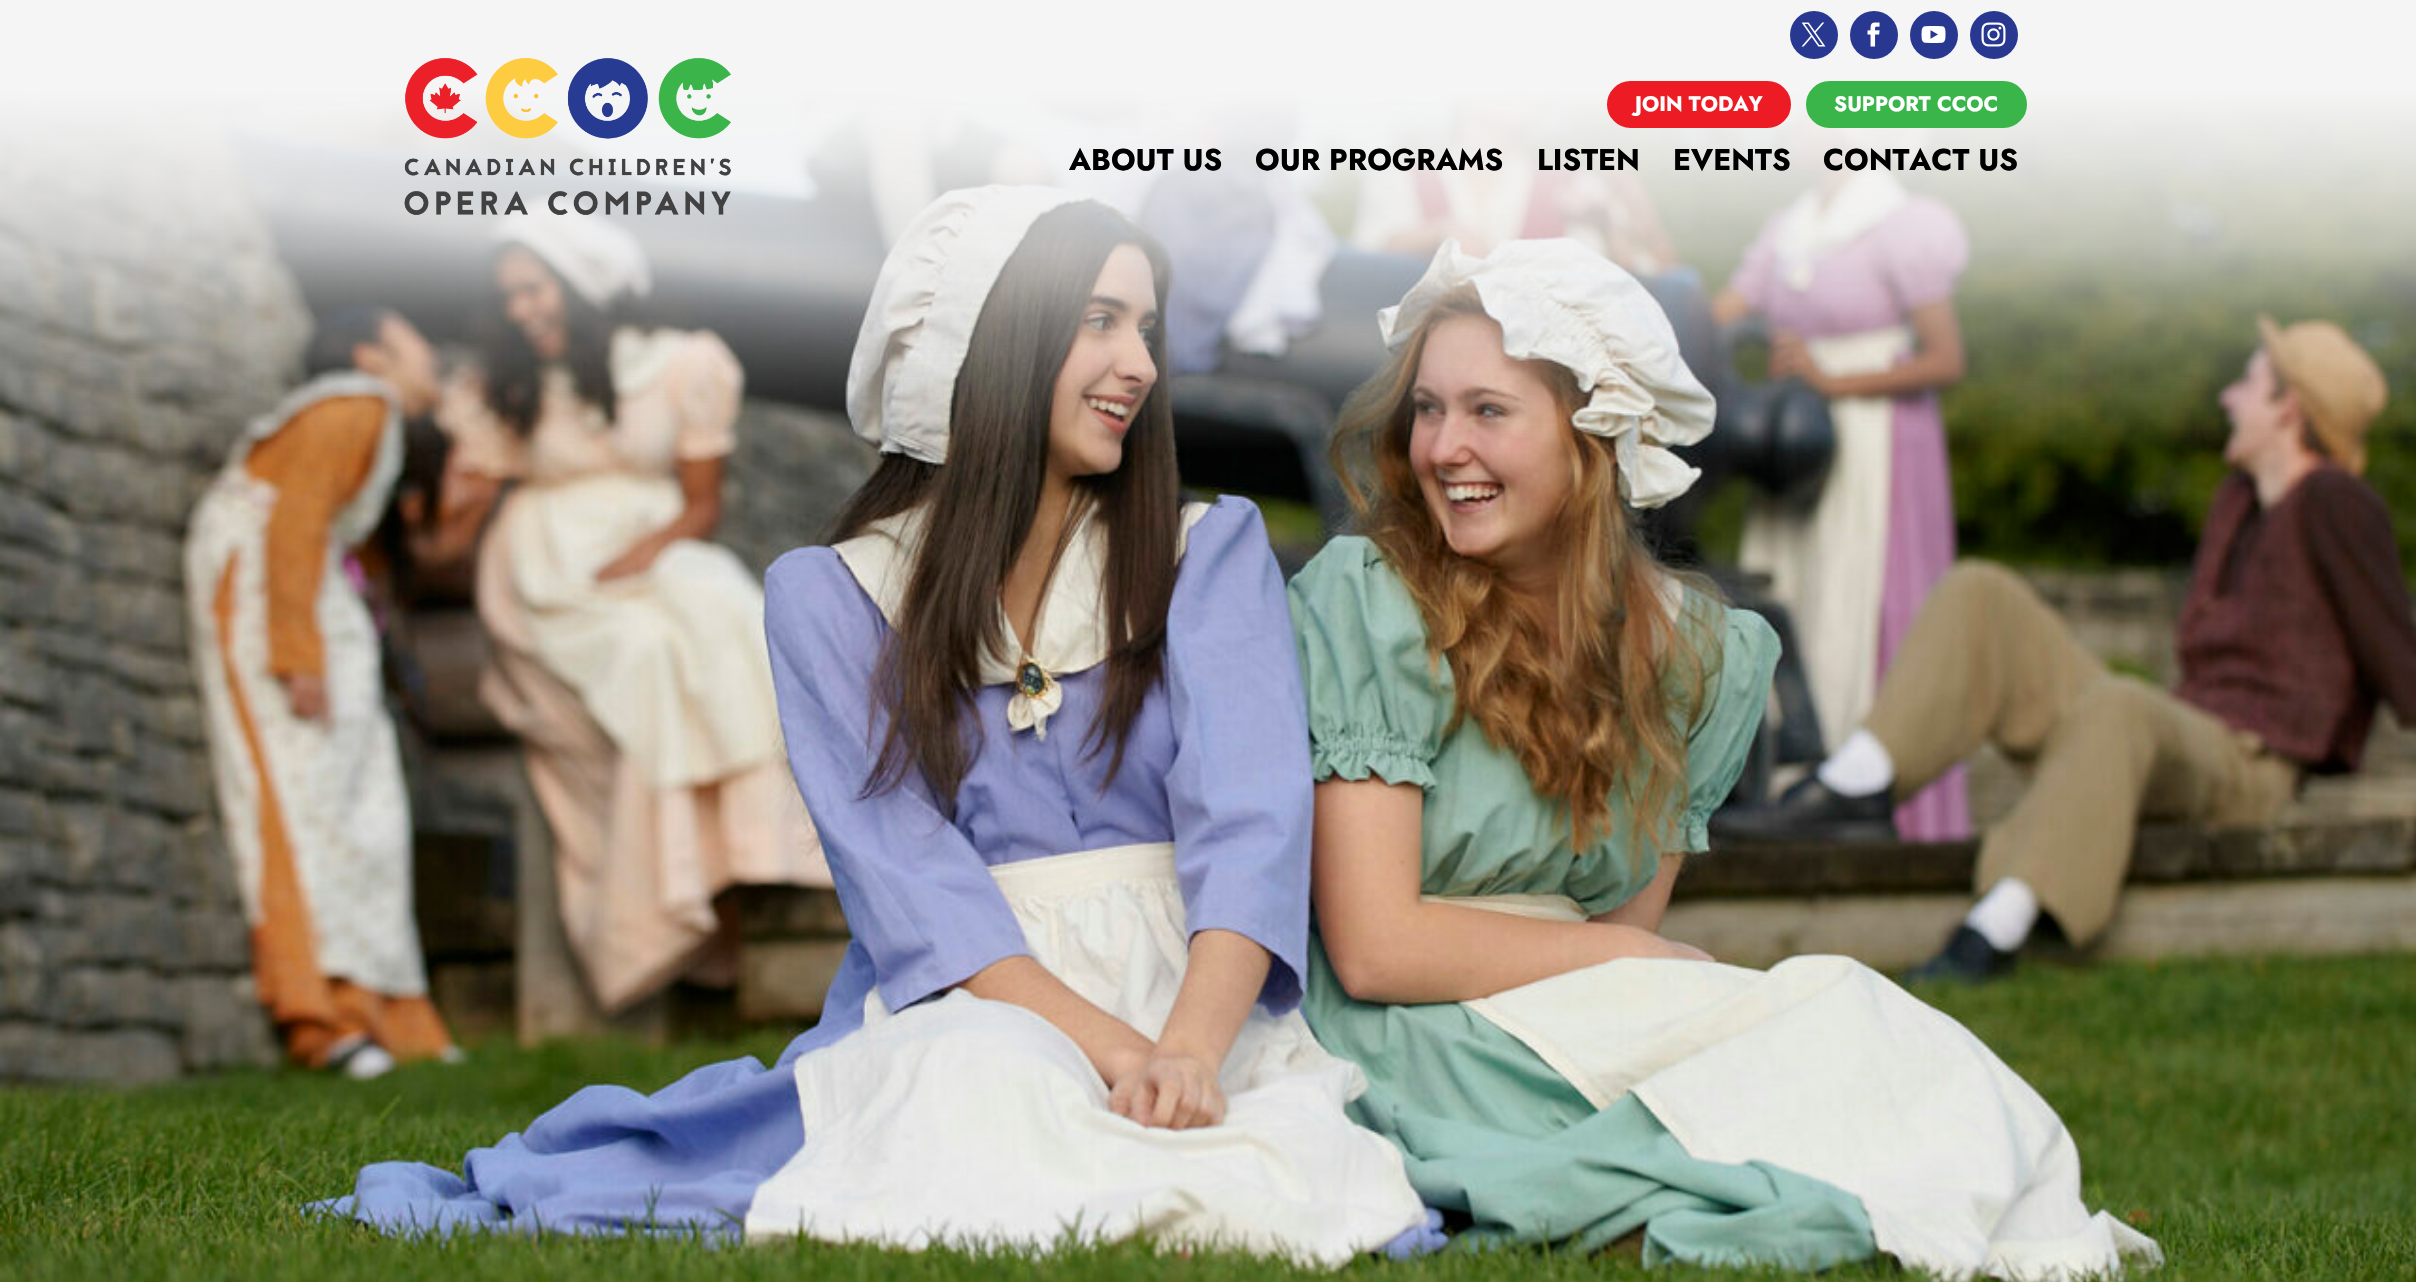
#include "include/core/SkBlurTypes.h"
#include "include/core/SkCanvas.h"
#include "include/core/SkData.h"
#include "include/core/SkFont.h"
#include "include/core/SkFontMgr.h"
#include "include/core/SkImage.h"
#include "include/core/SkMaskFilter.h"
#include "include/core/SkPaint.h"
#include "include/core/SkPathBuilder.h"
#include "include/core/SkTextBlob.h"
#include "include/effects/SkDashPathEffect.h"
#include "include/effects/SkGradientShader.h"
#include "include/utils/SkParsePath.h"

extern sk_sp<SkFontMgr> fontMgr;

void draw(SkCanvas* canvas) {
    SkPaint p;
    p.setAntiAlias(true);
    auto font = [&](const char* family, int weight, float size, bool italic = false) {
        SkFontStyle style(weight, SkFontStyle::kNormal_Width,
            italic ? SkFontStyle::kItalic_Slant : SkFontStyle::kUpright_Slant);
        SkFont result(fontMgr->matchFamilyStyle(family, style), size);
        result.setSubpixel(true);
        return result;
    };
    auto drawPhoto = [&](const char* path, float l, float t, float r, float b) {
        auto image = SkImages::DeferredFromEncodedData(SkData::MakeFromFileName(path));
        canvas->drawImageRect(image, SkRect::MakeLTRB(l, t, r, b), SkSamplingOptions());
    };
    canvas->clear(0xFFFFFFFF);
    drawPhoto("media/1.png", 0, 0, 2416, 1282);
    drawPhoto("media/2.png", 404, 58, 731, 215);
    p.setColor(0xFF283891);
    canvas->drawCircle(1814, 35, 24, p);
    drawPhoto("media/3.png", 1801, 22, 1826, 47);
    canvas->drawCircle(1874, 35, 24, p);
    drawPhoto("media/4.png", 1867, 22, 1880, 47);
    canvas->drawCircle(1934, 35, 24, p);
    drawPhoto("media/5.png", 1921, 26, 1946, 43);
    canvas->drawCircle(1994, 35, 24, p);
    drawPhoto("media/6.png", 1981, 22, 2006, 47);
    p.setColor(0xFFED1C24);
    canvas->drawRoundRect(SkRect::MakeLTRB(1608, 82, 1790, 127), 22.5f, 22.5f, p);
    p.setStyle(SkPaint::kStroke_Style);
    p.setStrokeWidth(2);
    canvas->drawRoundRect(SkRect::MakeLTRB(1608, 82, 1790, 127), 22.5f, 22.5f, p);
    auto font1 = font("Jost", 700, 21);
    p.setStyle(SkPaint::kFill_Style);
    p.setColor(0xFFFFFFFF);
    canvas->drawString("JOIN TODAY", 1635, 111, font1, p);
    p.setColor(0xFF39B54A);
    canvas->drawRoundRect(SkRect::MakeLTRB(1807, 82, 2026, 127), 22.5f, 22.5f, p);
    p.setStyle(SkPaint::kStroke_Style);
    canvas->drawRoundRect(SkRect::MakeLTRB(1807, 82, 2026, 127), 22.5f, 22.5f, p);
    p.setStyle(SkPaint::kFill_Style);
    p.setColor(0xFFFFFFFF);
    canvas->drawString("SUPPORT CCOC", 1834, 111, font1, p);
    auto font2 = font("Jost", 700, 30);
    p.setColor(0xFF000000);
    {
        const struct { const char* s; float x, y; } items[] = {
            {"ABOUT US", 1069, 170},
            {"OUR PROGRAMS", 1255, 170},
            {"LISTEN", 1537, 170},
            {"EVENTS", 1673, 170},
            {"CONTACT US", 1823, 170},
        };
        for (auto [s, x, y] : items) {
            canvas->drawString(s, x, y, font2, p);
        }
    }
}
